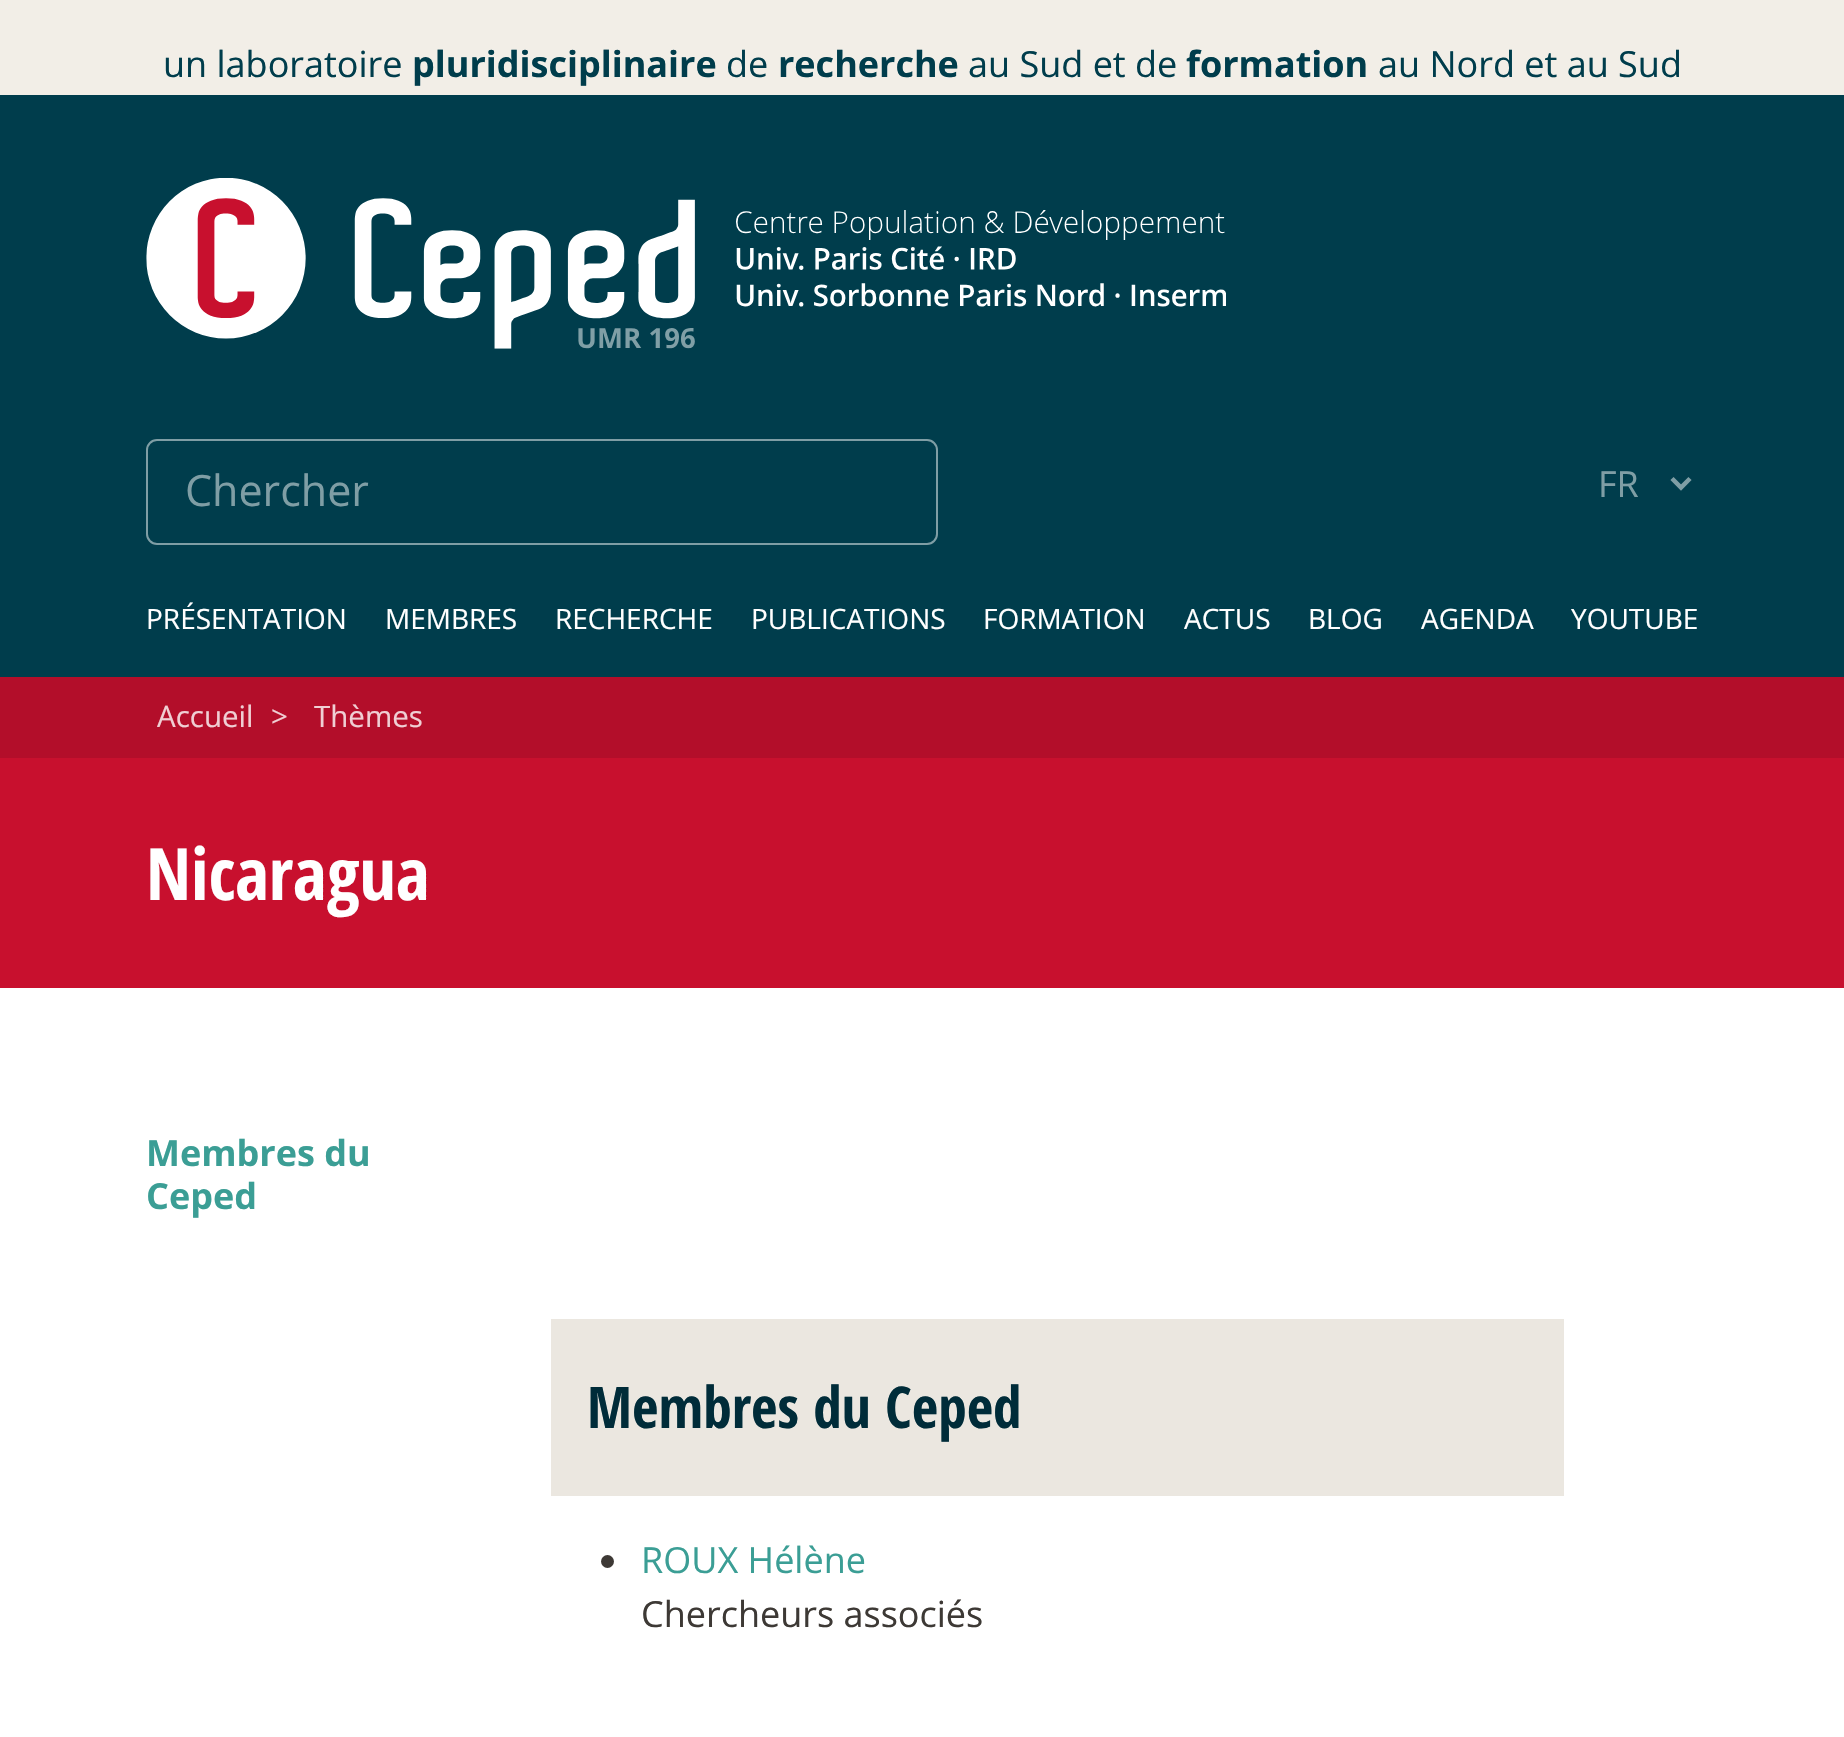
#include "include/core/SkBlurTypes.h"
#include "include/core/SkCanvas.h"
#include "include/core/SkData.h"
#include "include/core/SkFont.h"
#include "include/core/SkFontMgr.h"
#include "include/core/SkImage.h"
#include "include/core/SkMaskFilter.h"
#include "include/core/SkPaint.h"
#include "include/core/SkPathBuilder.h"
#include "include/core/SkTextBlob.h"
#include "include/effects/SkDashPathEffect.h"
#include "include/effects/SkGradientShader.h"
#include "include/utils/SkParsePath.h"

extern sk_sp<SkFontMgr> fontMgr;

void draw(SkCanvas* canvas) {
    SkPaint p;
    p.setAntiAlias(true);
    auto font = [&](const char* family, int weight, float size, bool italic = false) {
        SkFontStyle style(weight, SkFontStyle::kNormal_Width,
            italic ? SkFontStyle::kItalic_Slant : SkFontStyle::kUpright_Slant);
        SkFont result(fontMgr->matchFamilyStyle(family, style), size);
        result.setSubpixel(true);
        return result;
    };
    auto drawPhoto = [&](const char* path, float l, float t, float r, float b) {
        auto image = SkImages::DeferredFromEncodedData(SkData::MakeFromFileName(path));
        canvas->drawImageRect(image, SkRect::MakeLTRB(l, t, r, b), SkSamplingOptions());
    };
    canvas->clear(0xFFF2EEE7);
    auto font1 = font("Open Sans", 400, 36);
    p.setColor(0xFF003D4C);
    canvas->drawString("un laboratoire", 163, 77, font1, p);
    auto font2 = font("Open Sans", 700, 36);
    canvas->drawString("pluridisciplinaire", 412, 77, font2, p);
    canvas->drawString("de", 726, 77, font1, p);
    canvas->drawString("recherche", 778, 77, font2, p);
    canvas->drawString("au Sud et de", 968, 77, font1, p);
    canvas->drawString("formation", 1186, 77, font2, p);
    canvas->drawString("au Nord et au Sud", 1378, 77, font1, p);
    canvas->drawRect(SkRect::MakeLTRB(0, 95, 1844, 677), p);
    drawPhoto("media/1.png", 146, 178, 1226, 349);
    p.setStyle(SkPaint::kStroke_Style);
    p.setStrokeWidth(2);
    p.setColor(0xFF7F9EA5);
    canvas->drawRoundRect(SkRect::MakeLTRB(147, 440, 937, 544), 10, 10, p);
    auto font3 = font("Open Sans", 400, 43);
    p.setStyle(SkPaint::kFill_Style);
    canvas->drawString("Chercher", 185, 506, font3, p);
    p.setStyle(SkPaint::kStroke_Style);
    p.setStrokeWidth(4.5f);
    canvas->drawPath(SkPathBuilder().moveTo(1672, 478.5f).lineTo(1681, 487.5f).lineTo(1690, 478.5f).detach(), p);
    p.setStyle(SkPaint::kFill_Style);
    canvas->drawString("FR", 1598, 497, font1, p);
    auto font4 = font("Open Sans", 400, 28);
    p.setColor(0xFFFFFFFF);
    {
        const struct { const char* s; float x, y; } items[] = {
            {"PRÉSENTATION", 146, 629},
            {"MEMBRES", 385, 629},
            {"RECHERCHE", 555, 629},
            {"PUBLICATIONS", 751, 629},
            {"FORMATION", 983, 629},
            {"ACTUS", 1184, 629},
            {"BLOG", 1308, 629},
            {"AGENDA", 1421, 629},
            {"YOUTUBE", 1571, 629},
        };
        for (auto [s, x, y] : items) {
            canvas->drawString(s, x, y, font4, p);
        }
    }
    p.setColor(0xFFB30E2A);
    canvas->drawRect(SkRect::MakeLTRB(0, 677, 1844, 758), p);
    auto font5 = font("Open Sans", 400, 29.5f);
    p.setColor(0xFFF0CFD4);
    {
        const struct { const char* s; float x, y; } items[] = {
            {"Accueil", 157, 727},
            {">", 271, 727},
            {"Thèmes", 314, 727},
        };
        for (auto [s, x, y] : items) {
            canvas->drawString(s, x, y, font5, p);
        }
    }
    p.setColor(0xFFC8102E);
    canvas->drawRect(SkRect::MakeLTRB(0, 758, 1844, 988), p);
    auto font6 = font("Open Sans Condensed", 700, 72);
    p.setColor(0xFFFFFFFF);
    canvas->drawString("Nicaragua", 146, 900, font6, p);
    canvas->drawRect(SkRect::MakeLTRB(0, 988, 1844, 1737), p);
    p.setColor(0xFF3B9E95);
    canvas->drawString("Membres du", 146, 1166, font2, p);
    canvas->drawString("Ceped", 146, 1209, font2, p);
    p.setColor(0xFFEBE7E0);
    canvas->drawRect(SkRect::MakeLTRB(551, 1319, 1564, 1496), p);
    auto font7 = font("Open Sans Condensed", 700, 57.5f);
    p.setColor(0xFF002C39);
    canvas->drawString("Membres du Ceped", 587, 1428, font7, p);
    p.setColor(0xFF3D3935);
    canvas->drawCircle(607.5f, 1561.5f, 6.5f, p);
    p.setColor(0xFF3B9E95);
    canvas->drawString("ROUX Hélène", 641, 1573, font1, p);
    p.setColor(0xFF3D3935);
    canvas->drawString("Chercheurs associés", 641, 1627, font1, p);
}
